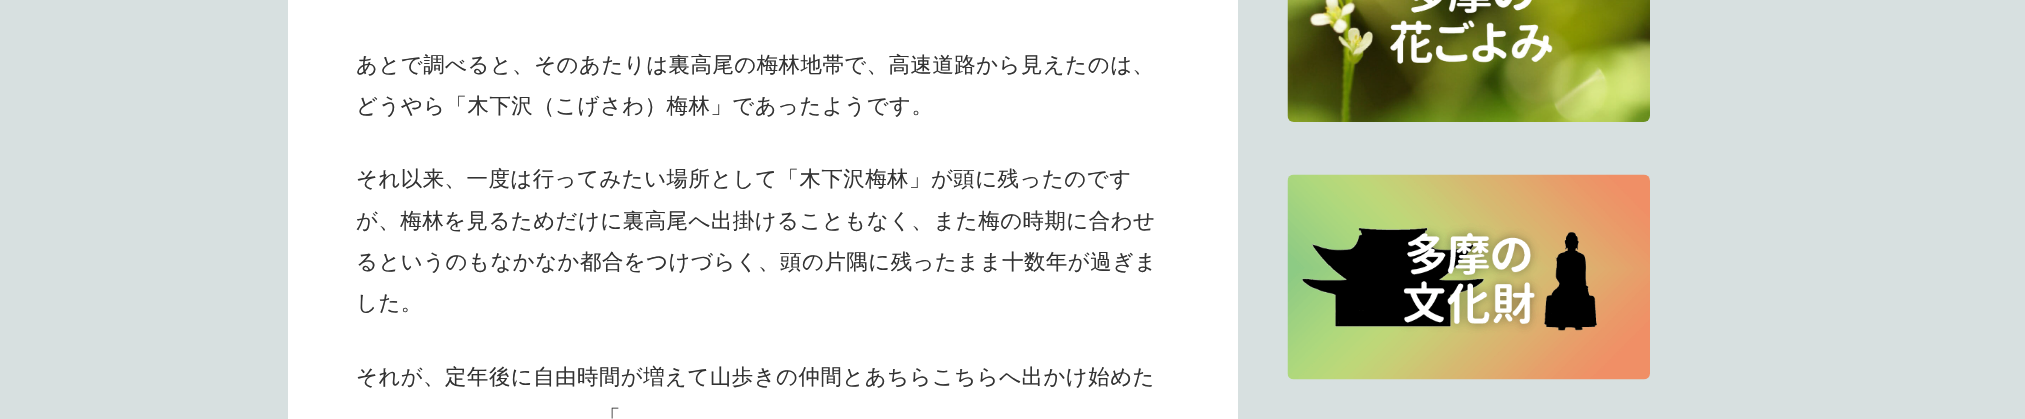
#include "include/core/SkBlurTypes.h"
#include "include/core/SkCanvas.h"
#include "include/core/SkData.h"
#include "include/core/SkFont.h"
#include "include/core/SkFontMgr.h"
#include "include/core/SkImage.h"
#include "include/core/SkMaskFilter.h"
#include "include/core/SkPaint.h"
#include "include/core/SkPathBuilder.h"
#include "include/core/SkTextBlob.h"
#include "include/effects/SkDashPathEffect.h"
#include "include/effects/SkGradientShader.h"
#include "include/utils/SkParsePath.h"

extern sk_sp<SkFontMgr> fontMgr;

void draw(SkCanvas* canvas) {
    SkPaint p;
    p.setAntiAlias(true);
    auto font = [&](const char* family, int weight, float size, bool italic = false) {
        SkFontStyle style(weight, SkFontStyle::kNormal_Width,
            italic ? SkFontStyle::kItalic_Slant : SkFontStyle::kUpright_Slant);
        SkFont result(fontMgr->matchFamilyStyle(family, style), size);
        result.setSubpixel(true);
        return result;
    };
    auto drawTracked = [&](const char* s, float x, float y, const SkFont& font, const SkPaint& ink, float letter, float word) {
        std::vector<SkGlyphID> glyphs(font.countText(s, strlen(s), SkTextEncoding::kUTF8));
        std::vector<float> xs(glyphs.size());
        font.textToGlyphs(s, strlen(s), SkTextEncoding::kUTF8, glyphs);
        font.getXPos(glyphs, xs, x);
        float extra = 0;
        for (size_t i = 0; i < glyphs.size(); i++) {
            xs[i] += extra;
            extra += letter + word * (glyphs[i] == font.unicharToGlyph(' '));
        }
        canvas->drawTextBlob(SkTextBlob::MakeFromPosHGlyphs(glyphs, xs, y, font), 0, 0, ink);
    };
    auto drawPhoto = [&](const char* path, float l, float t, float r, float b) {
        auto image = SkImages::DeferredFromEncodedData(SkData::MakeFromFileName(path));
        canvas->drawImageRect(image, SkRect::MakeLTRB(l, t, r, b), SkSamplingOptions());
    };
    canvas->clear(0xFFD7E0E0);
    p.setColor(0xFFFFFFFF);
    canvas->drawRect(SkRect::MakeLTRB(288, 0, 1238, 419), p);
    auto font1 = font("WenQuanYi Zen Hei", 500, 21.4f);
    p.setColor(0xFF333333);
    {
        const struct { const char* s; float x, y; } items[] = {
            {"あとで調べると、そのあたりは裏高尾の梅林地帯で、高速道路から見えたのは、", 356, 72},
            {"どうやら「木下沢（こげさわ）梅林」であったようです。", 356, 113},
            {"それ以来、一度は行ってみたい場所として「木下沢梅林」が頭に残ったのです", 356, 186},
            {"が、梅林を見るためだけに裏高尾へ出掛けることもなく、また梅の時期に合わせ", 356, 228},
            {"るというのもなかなか都合をつけづらく、頭の片隅に残ったまま十数年が過ぎま", 356, 269},
            {"した。", 356, 310},
            {"それが、定年後に自由時間が増えて山歩きの仲間とあちらこちらへ出かけ始めた", 356, 384},
            {"「", 599, 425},
        };
        for (auto [s, x, y] : items) {
            drawTracked(s, x, y, font1, p, 0.5f, 0);
        }
    }
    drawPhoto("media/1.png", 1287, 0, 1650, 122);
    drawPhoto("media/2.png", 1287, 174, 1650, 380);
}
